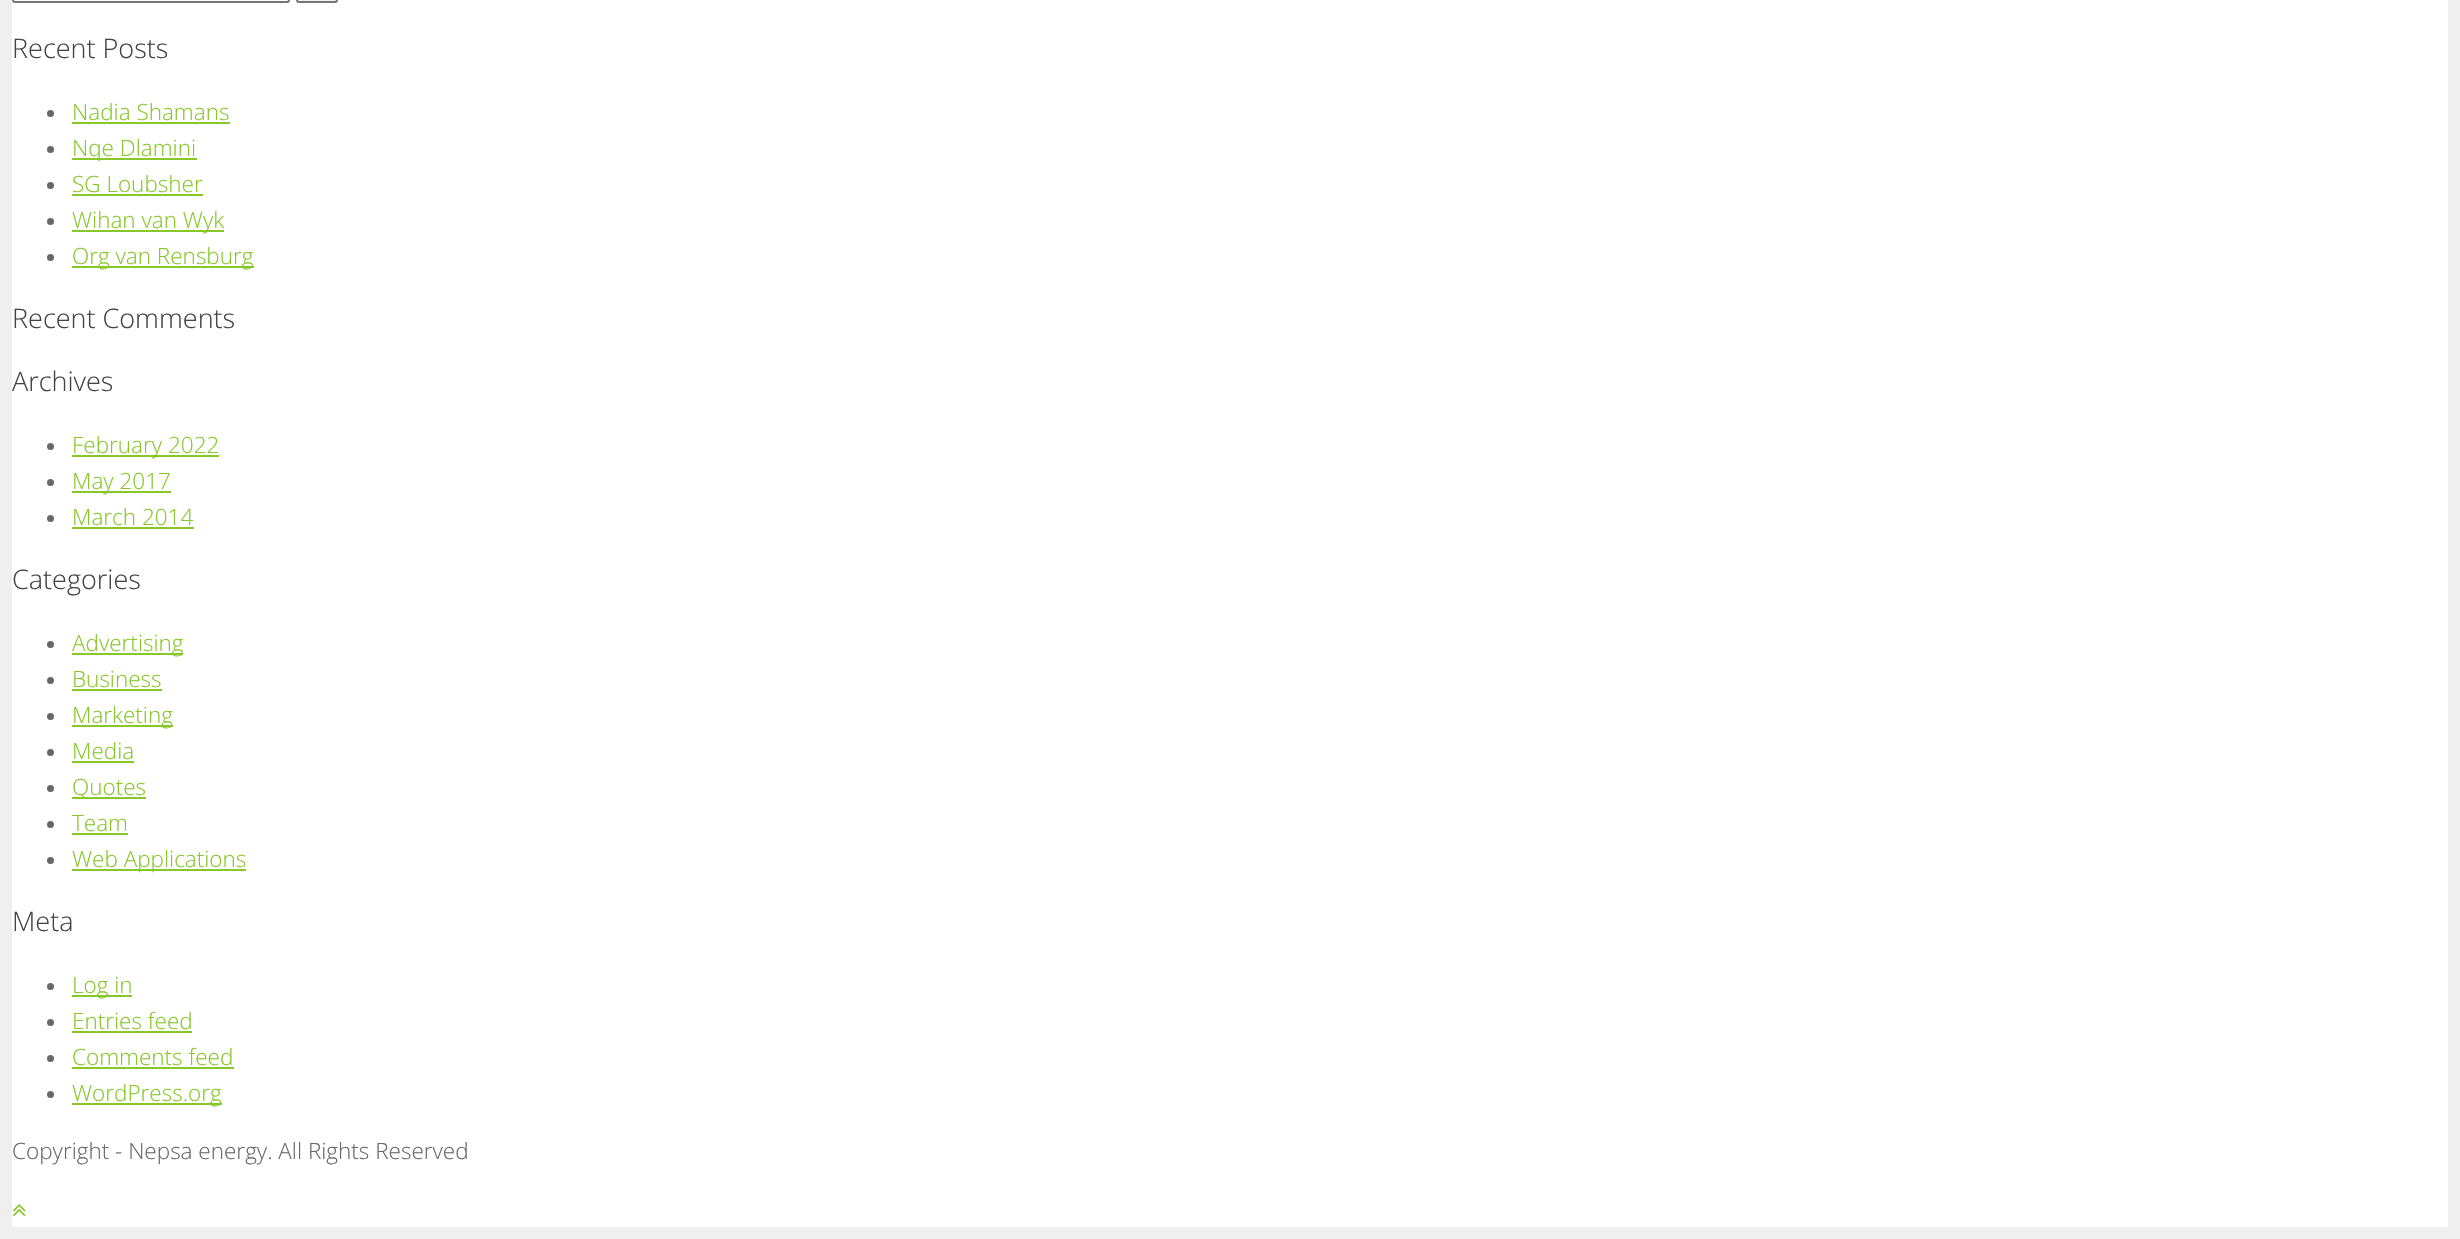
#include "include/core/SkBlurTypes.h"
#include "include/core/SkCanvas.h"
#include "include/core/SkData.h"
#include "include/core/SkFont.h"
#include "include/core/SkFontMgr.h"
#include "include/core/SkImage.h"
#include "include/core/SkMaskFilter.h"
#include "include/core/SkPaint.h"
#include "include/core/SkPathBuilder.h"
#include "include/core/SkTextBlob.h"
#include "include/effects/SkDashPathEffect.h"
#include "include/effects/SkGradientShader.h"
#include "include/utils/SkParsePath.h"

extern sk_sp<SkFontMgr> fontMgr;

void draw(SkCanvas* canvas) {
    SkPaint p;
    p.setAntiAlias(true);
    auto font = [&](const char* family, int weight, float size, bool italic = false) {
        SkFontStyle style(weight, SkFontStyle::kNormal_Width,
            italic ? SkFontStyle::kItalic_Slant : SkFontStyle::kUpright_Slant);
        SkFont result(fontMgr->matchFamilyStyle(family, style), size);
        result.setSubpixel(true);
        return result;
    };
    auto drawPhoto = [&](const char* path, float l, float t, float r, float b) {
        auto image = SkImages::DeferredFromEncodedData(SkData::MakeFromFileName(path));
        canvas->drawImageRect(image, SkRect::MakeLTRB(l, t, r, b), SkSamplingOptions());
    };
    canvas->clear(0xFFEFEFEF);
    p.setColor(0xFFFFFFFF);
    canvas->drawRect(SkRect::MakeLTRB(12, 0, 2448, 1227), p);
    p.setStyle(SkPaint::kStroke_Style);
    p.setStrokeWidth(2);
    p.setColor(0xFF767676);
    canvas->drawRoundRect(SkRect::MakeLTRB(13, -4, 289, 2), 2, 2, p);
    p.setStyle(SkPaint::kFill_Style);
    p.setColor(0xFFEFEFEF);
    canvas->drawRoundRect(SkRect::MakeLTRB(297, -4, 337, 2), 2, 2, p);
    p.setStyle(SkPaint::kStroke_Style);
    p.setColor(0xFF767676);
    canvas->drawRoundRect(SkRect::MakeLTRB(297, -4, 337, 2), 2, 2, p);
    auto font1 = font("Open Sans", 300, 27);
    p.setStyle(SkPaint::kFill_Style);
    p.setColor(0xFF444444);
    canvas->drawString("Recent Posts", 12, 58, font1, p);
    p.setColor(0xFF686868);
    canvas->drawCircle(50.5f, 113.5f, 3.5f, p);
    auto font2 = font("Open Sans", 300, 22.5f);
    p.setColor(0xFF87C72A);
    canvas->drawString("Nadia Shamans", 72, 120, font2, p);
    canvas->drawRect(SkRect::MakeLTRB(72, 122, 230, 124), p);
    p.setColor(0xFF686868);
    canvas->drawCircle(50.5f, 149.5f, 3.5f, p);
    p.setColor(0xFF87C72A);
    canvas->drawRect(SkRect::MakeLTRB(72, 158, 197, 160), p);
    canvas->drawString("Nqe Dlamini", 72, 156, font2, p);
    p.setColor(0xFF686868);
    canvas->drawCircle(50.5f, 185.5f, 3.5f, p);
    p.setColor(0xFF87C72A);
    canvas->drawString("SG Loubsher", 72, 192, font2, p);
    canvas->drawRect(SkRect::MakeLTRB(72, 194, 203, 196), p);
    p.setColor(0xFF686868);
    canvas->drawCircle(50.5f, 221.5f, 3.5f, p);
    p.setColor(0xFF87C72A);
    canvas->drawRect(SkRect::MakeLTRB(72, 230, 224, 232), p);
    canvas->drawString("Wihan van Wyk", 72, 228, font2, p);
    p.setColor(0xFF686868);
    canvas->drawCircle(50.5f, 257.5f, 3.5f, p);
    p.setColor(0xFF87C72A);
    canvas->drawRect(SkRect::MakeLTRB(72, 266, 254, 268), p);
    canvas->drawString("Org van Rensburg", 72, 264, font2, p);
    p.setColor(0xFF444444);
    canvas->drawString("Recent Comments", 12, 328, font1, p);
    canvas->drawString("Archives", 12, 391, font1, p);
    p.setColor(0xFF686868);
    canvas->drawCircle(50.5f, 446.5f, 3.5f, p);
    p.setColor(0xFF87C72A);
    canvas->drawRect(SkRect::MakeLTRB(72, 455, 219, 457), p);
    canvas->drawString("February 2022", 72, 453, font2, p);
    p.setColor(0xFF686868);
    canvas->drawCircle(50.5f, 482.5f, 3.5f, p);
    p.setColor(0xFF87C72A);
    canvas->drawRect(SkRect::MakeLTRB(72, 491, 171, 493), p);
    canvas->drawString("May 2017", 72, 489, font2, p);
    p.setColor(0xFF686868);
    canvas->drawCircle(50.5f, 518.5f, 3.5f, p);
    p.setColor(0xFF87C72A);
    canvas->drawString("March 2014", 72, 525, font2, p);
    canvas->drawRect(SkRect::MakeLTRB(72, 527, 194, 529), p);
    p.setColor(0xFF444444);
    canvas->drawString("Categories", 12, 589, font1, p);
    p.setColor(0xFF686868);
    canvas->drawCircle(50.5f, 644.5f, 3.5f, p);
    p.setColor(0xFF87C72A);
    canvas->drawRect(SkRect::MakeLTRB(72, 653, 183, 655), p);
    canvas->drawString("Advertising", 72, 651, font2, p);
    p.setColor(0xFF686868);
    canvas->drawCircle(50.5f, 680.5f, 3.5f, p);
    p.setColor(0xFF87C72A);
    canvas->drawString("Business", 72, 687, font2, p);
    canvas->drawRect(SkRect::MakeLTRB(72, 689, 162, 691), p);
    p.setColor(0xFF686868);
    canvas->drawCircle(50.5f, 716.5f, 3.5f, p);
    p.setColor(0xFF87C72A);
    canvas->drawRect(SkRect::MakeLTRB(72, 725, 173, 727), p);
    canvas->drawString("Marketing", 72, 723, font2, p);
    p.setColor(0xFF686868);
    canvas->drawCircle(50.5f, 752.5f, 3.5f, p);
    p.setColor(0xFF87C72A);
    canvas->drawString("Media", 72, 759, font2, p);
    canvas->drawRect(SkRect::MakeLTRB(72, 761, 134, 763), p);
    p.setColor(0xFF686868);
    canvas->drawCircle(50.5f, 788.5f, 3.5f, p);
    p.setColor(0xFF87C72A);
    canvas->drawRect(SkRect::MakeLTRB(72, 797, 146, 799), p);
    canvas->drawString("Quotes", 72, 795, font2, p);
    p.setColor(0xFF686868);
    canvas->drawCircle(50.5f, 824.5f, 3.5f, p);
    p.setColor(0xFF87C72A);
    canvas->drawString("Team", 72, 831, font2, p);
    canvas->drawRect(SkRect::MakeLTRB(72, 833, 128, 835), p);
    p.setColor(0xFF686868);
    canvas->drawCircle(50.5f, 860.5f, 3.5f, p);
    p.setColor(0xFF87C72A);
    canvas->drawRect(SkRect::MakeLTRB(72, 869, 246, 871), p);
    canvas->drawString("Web Applications", 72, 867, font2, p);
    p.setColor(0xFF444444);
    canvas->drawString("Meta", 12, 931, font1, p);
    p.setColor(0xFF686868);
    canvas->drawCircle(50.5f, 986.5f, 3.5f, p);
    p.setColor(0xFF87C72A);
    canvas->drawRect(SkRect::MakeLTRB(72, 995, 132, 997), p);
    canvas->drawString("Log in", 72, 993, font2, p);
    p.setColor(0xFF686868);
    canvas->drawCircle(50.5f, 1022.5f, 3.5f, p);
    p.setColor(0xFF87C72A);
    canvas->drawString("Entries feed", 72, 1029, font2, p);
    canvas->drawRect(SkRect::MakeLTRB(72, 1031, 192, 1033), p);
    p.setColor(0xFF686868);
    canvas->drawCircle(50.5f, 1058.5f, 3.5f, p);
    p.setColor(0xFF87C72A);
    canvas->drawString("Comments feed", 72, 1065, font2, p);
    canvas->drawRect(SkRect::MakeLTRB(72, 1067, 234, 1069), p);
    p.setColor(0xFF686868);
    canvas->drawCircle(50.5f, 1094.5f, 3.5f, p);
    p.setColor(0xFF87C72A);
    canvas->drawRect(SkRect::MakeLTRB(72, 1103, 222, 1105), p);
    canvas->drawString("WordPress.org", 72, 1101, font2, p);
    p.setColor(0xFF686868);
    canvas->drawString("Copyright - Nepsa energy. All Rights Reserved", 12, 1159, font2, p);
    drawPhoto("media/1.png", 13, 1204, 26, 1217);
}
